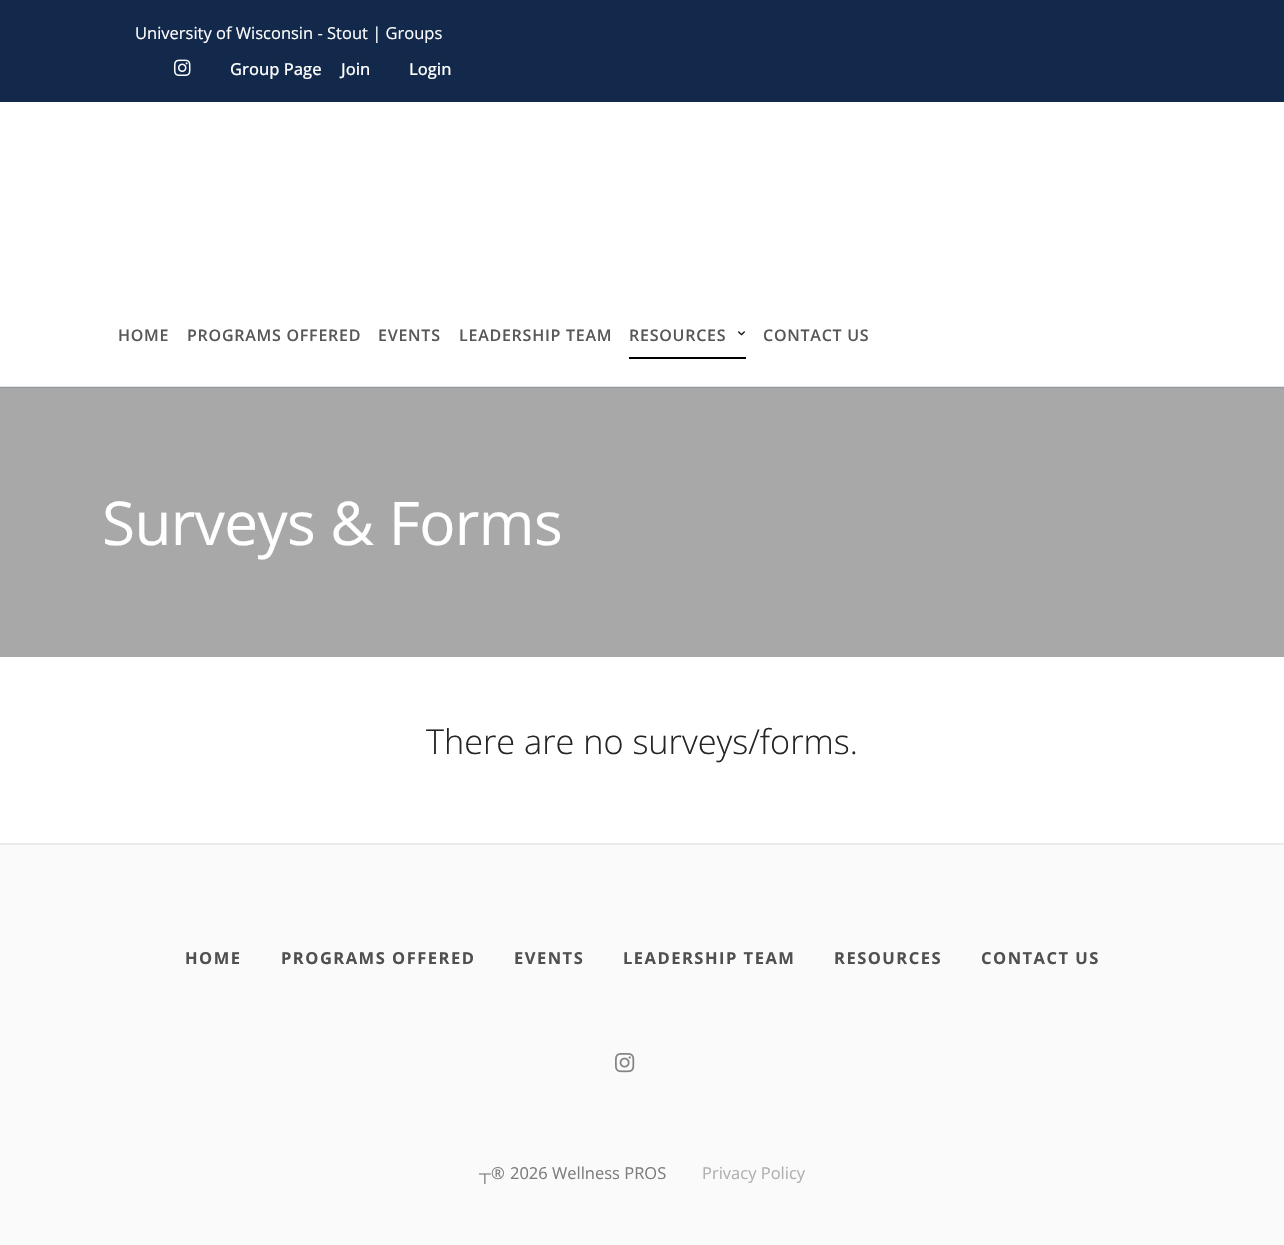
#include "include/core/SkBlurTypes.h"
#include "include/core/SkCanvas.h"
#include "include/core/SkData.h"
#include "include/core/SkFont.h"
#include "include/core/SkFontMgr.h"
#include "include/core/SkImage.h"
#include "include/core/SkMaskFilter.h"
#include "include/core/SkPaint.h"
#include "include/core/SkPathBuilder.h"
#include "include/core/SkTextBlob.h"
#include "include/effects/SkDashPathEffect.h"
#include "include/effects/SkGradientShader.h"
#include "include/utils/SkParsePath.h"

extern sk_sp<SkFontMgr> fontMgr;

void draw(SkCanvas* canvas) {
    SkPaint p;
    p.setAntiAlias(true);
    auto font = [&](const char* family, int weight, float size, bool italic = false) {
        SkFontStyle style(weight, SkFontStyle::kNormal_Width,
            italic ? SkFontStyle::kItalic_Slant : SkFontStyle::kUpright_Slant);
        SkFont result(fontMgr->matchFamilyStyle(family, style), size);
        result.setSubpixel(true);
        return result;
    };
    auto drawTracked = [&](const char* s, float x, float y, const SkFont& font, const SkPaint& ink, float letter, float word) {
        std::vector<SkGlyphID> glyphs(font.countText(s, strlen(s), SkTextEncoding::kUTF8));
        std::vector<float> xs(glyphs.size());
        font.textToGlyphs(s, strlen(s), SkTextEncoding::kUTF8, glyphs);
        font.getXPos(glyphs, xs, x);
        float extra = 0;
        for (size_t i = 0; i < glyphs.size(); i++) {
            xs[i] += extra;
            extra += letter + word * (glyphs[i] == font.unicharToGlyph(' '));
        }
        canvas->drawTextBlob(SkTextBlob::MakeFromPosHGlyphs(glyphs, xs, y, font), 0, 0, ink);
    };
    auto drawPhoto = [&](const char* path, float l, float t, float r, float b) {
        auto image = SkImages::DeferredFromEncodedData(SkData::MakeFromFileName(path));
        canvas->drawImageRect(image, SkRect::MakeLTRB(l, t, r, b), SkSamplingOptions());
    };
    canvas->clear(0xFFFFFFFF);
    p.setColor(0xFFA8A8A8);
    canvas->drawRect(SkRect::MakeLTRB(0, 388, 1284, 657), p);
    p.setColor(0xFF13294B);
    canvas->drawRect(SkRect::MakeLTRB(0, 0, 1284, 102), p);
    auto font1 = font("Open Sans", 400, 16.5f);
    p.setColor(0xFFFFFFFF);
    canvas->drawString("University of Wisconsin - Stout | Groups", 135, 39, font1, p);
    drawPhoto("media/1.png", 174, 59, 191, 76);
    auto font2 = font("Open Sans", 500, 16.5f);
    {
        const struct { const char* s; float x, y; } items[] = {
            {"Group Page", 230, 75},
            {"Join", 341, 75},
            {"Login", 409, 75},
        };
        for (auto [s, x, y] : items) {
            canvas->drawString(s, x, y, font2, p);
        }
    }
    p.setColor(0xFFE1E6EA);
    canvas->drawRect(SkRect::MakeLTRB(0, 386, 1284, 387), p);
    p.setColor(0xFF96999B);
    canvas->drawRect(SkRect::MakeLTRB(0, 387, 1284, 388), p);
    auto font3 = font("Open Sans", 600, 16);
    p.setColor(0xFF585858);
    {
        const struct { const char* s; float x, y; } items[] = {
            {"HOME", 118, 341},
            {"PROGRAMS OFFERED", 187, 341},
            {"EVENTS", 378, 341},
            {"LEADERSHIP TEAM", 459, 341},
        };
        for (auto [s, x, y] : items) {
            drawTracked(s, x, y, font3, p, 0.75f, 0);
        }
    }
    p.setColor(0xFF000000);
    canvas->drawRect(SkRect::MakeLTRB(629, 357, 746, 359), p);
    p.setColor(0xFF585858);
    drawTracked("RESOURCES", 629, 341, font3, p, 0.75f, 0);
    drawPhoto("media/2.png", 738, 331, 745, 336);
    drawTracked("CONTACT US", 763, 341, font3, p, 0.75f, 0);
    auto font4 = font("Open Sans", 400, 60.25f);
    p.setColor(0xFFFFFFFF);
    drawTracked("Surveys & Forms", 102, 545, font4, p, -0.6f, 0);
    auto font5 = font("Open Sans", 300, 34.25f);
    p.setColor(0xFF252525);
    canvas->drawString("There are no surveys/forms.", 426, 754, font5, p);
    p.setColor(0xFFFAFAFA);
    canvas->drawRect(SkRect::MakeLTRB(0, 845, 1284, 1245), p);
    p.setColor(0xFFEBEBEB);
    canvas->drawRect(SkRect::MakeLTRB(0, 843, 1284, 845), p);
    auto font6 = font("Open Sans", 700, 16.5f);
    p.setColor(0xFF505050);
    {
        const struct { const char* s; float x, y; } items[] = {
            {"HOME", 185, 964},
            {"PROGRAMS OFFERED", 281, 964},
            {"EVENTS", 514, 964},
            {"LEADERSHIP TEAM", 623, 964},
            {"RESOURCES", 834, 964},
            {"CONTACT US", 981, 964},
        };
        for (auto [s, x, y] : items) {
            drawTracked(s, x, y, font6, p, 1.5f, 0);
        }
    }
    drawPhoto("media/3.png", 615, 1053, 635, 1073);
    auto font7 = font("Liberation Sans", 400, 16.5f);
    p.setColor(0xFF7D7D7D);
    canvas->drawString("┬", 479, 1179, font7, p);
    {
        const struct { const char* s; float x, y; } items[] = {
            {"®", 491, 1179},
            {"2026", 510, 1179},
            {"Wellness PROS", 552, 1179},
        };
        for (auto [s, x, y] : items) {
            canvas->drawString(s, x, y, font1, p);
        }
    }
    p.setColor(0xFFB0B0B0);
    canvas->drawString("Privacy Policy", 702, 1179, font1, p);
}
